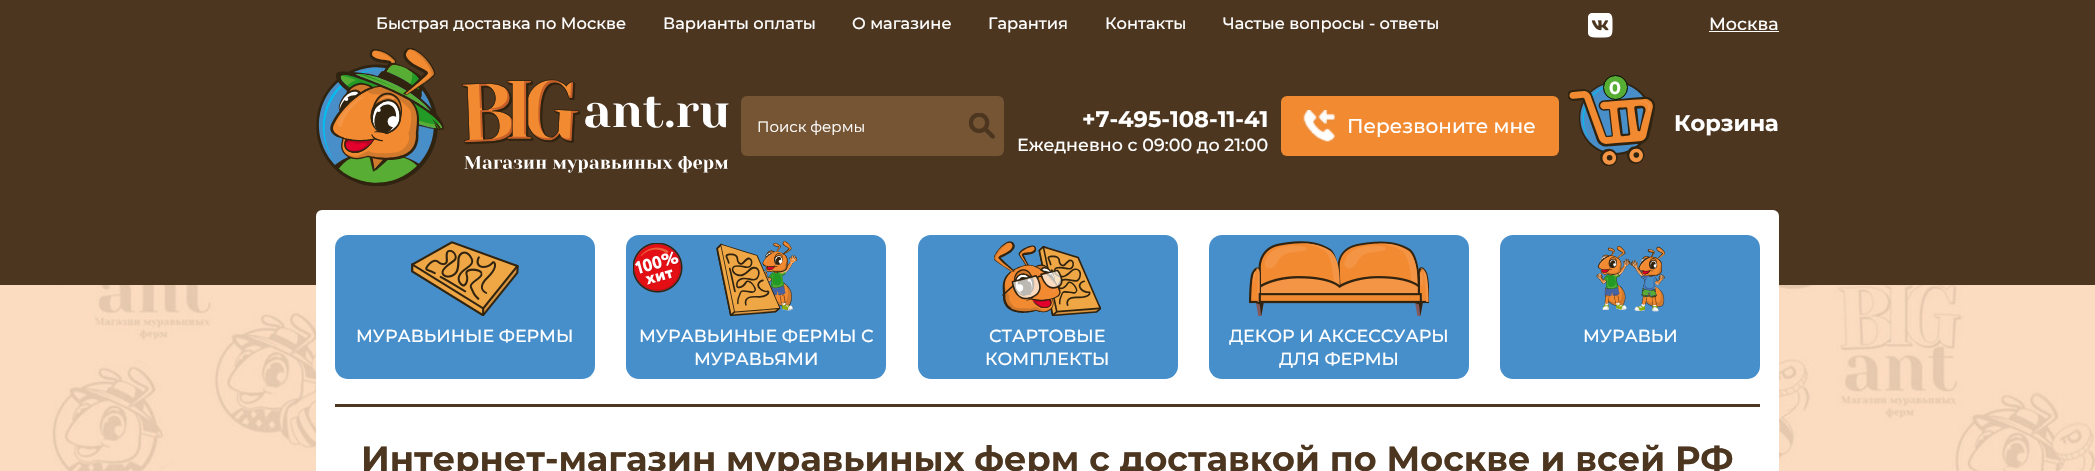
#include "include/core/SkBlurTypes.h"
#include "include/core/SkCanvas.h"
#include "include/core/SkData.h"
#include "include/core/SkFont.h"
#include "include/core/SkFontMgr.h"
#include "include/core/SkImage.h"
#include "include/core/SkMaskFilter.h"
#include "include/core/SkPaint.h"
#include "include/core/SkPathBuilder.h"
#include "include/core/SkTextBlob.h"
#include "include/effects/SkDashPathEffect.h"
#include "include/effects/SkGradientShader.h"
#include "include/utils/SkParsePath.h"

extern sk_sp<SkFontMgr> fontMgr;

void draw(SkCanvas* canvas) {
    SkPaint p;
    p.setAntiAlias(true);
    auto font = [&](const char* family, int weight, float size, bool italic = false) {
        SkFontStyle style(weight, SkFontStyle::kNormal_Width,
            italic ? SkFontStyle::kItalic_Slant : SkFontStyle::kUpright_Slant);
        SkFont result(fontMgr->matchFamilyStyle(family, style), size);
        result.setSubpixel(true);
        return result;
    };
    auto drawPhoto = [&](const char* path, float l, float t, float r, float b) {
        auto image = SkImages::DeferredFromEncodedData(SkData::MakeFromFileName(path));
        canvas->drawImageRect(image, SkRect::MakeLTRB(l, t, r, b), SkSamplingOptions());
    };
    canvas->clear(0xFFFFFFFF);
    drawPhoto("media/1.png", 0, 285, 2095, 471);
    p.setColor(0xFF4C3620);
    canvas->drawRect(SkRect::MakeLTRB(0, 0, 2095, 285), p);
    auto font1 = font("Montserrat", 500, 16.25f);
    p.setColor(0xFFFFFFFF);
    {
        const struct { const char* s; float x, y; } items[] = {
            {"Быстрая доставка по Москве", 376, 29},
            {"Варианты оплаты", 663, 29},
            {"О магазине", 852, 29},
            {"Гарантия", 988, 29},
            {"Контакты", 1105, 29},
            {"Частые вопросы - ответы", 1223, 29},
        };
        for (auto [s, x, y] : items) {
            canvas->drawString(s, x, y, font1, p);
        }
    }
    drawPhoto("media/2.png", 1588, 13, 1613, 38);
    auto font2 = font("Montserrat", 500, 17.5f);
    canvas->drawString("Москва", 1709, 30, font2, p);
    canvas->drawRect(SkRect::MakeLTRB(1709, 31, 1779, 32), p);
    drawPhoto("media/3.png", 316, 48, 729, 186);
    p.setColor(0xFF765534);
    canvas->drawRoundRect(SkRect::MakeLTRB(741, 96, 1004, 156), 6, 6, p);
    auto font3 = font("Montserrat", 400, 15);
    p.setColor(0xFFFFFFFF);
    canvas->drawString("Поиск фермы", 757, 132, font3, p);
    drawPhoto("media/4.png", 969, 113, 995, 139);
    auto font4 = font("Montserrat", 700, 22.5f);
    canvas->drawString("+7-495-108-11-41", 1082, 127, font4, p);
    canvas->drawString("Ежедневно с 09:00 до 21:00", 1017, 151, font2, p);
    p.setColor(0xFFF28A31);
    canvas->drawRoundRect(SkRect::MakeLTRB(1281, 96, 1559, 156), 6, 6, p);
    drawPhoto("media/5.png", 1303, 110, 1335, 142);
    auto font5 = font("Montserrat", 500, 20);
    p.setColor(0xFFFFFFFF);
    canvas->drawString("Перезвоните мне", 1347, 133, font5, p);
    drawPhoto("media/6.png", 1568, 83, 1655, 166);
    p.setColor(0xFF56AE34);
    canvas->drawCircle(1615.5f, 87.5f, 12, p);
    p.setStyle(SkPaint::kStroke_Style);
    p.setStrokeWidth(1);
    p.setColor(0xFF000000);
    canvas->drawCircle(1615.5f, 87.5f, 12, p);
    auto font6 = font("Montserrat", 700, 17.5f);
    p.setStyle(SkPaint::kFill_Style);
    p.setColor(0xFFFFFFFF);
    canvas->drawString("0", 1609, 94, font6, p);
    canvas->drawString("Корзина", 1674, 131, font4, p);
    canvas->drawRoundRect(SkRect::MakeLTRB(316, 210, 1779, 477), 6, 6, p);
    p.setColor(0xFF4C3620);
    canvas->drawRect(SkRect::MakeLTRB(335, 404, 1760, 407), p);
    p.setColor(0xFF478FCA);
    canvas->drawRoundRect(SkRect::MakeLTRB(335, 235, 595, 379), 13, 13, p);
    drawPhoto("media/7.png", 411, 241, 519, 316);
    p.setColor(0xFFFFFFFF);
    canvas->drawString("МУРАВЬИНЫЕ ФЕРМЫ", 356, 342, font2, p);
    p.setColor(0xFF478FCA);
    canvas->drawRoundRect(SkRect::MakeLTRB(626, 235, 886, 379), 13, 13, p);
    drawPhoto("media/8.png", 633, 243, 683, 293);
    drawPhoto("media/9.png", 716, 241, 798, 316);
    p.setColor(0xFFFFFFFF);
    canvas->drawString("МУРАВЬИНЫЕ ФЕРМЫ С", 639, 342, font2, p);
    canvas->drawString("МУРАВЬЯМИ", 694, 365, font2, p);
    p.setColor(0xFF478FCA);
    canvas->drawRoundRect(SkRect::MakeLTRB(918, 235, 1178, 379), 13, 13, p);
    drawPhoto("media/10.png", 994, 241, 1101, 316);
    p.setColor(0xFFFFFFFF);
    canvas->drawString("СТАРТОВЫЕ", 989, 342, font2, p);
    canvas->drawString("КОМПЛЕКТЫ", 985, 365, font2, p);
    p.setColor(0xFF478FCA);
    canvas->drawRoundRect(SkRect::MakeLTRB(1209, 235, 1469, 379), 13, 13, p);
    drawPhoto("media/11.png", 1249, 241, 1429, 316);
    p.setColor(0xFFFFFFFF);
    canvas->drawString("ДЕКОР И АКСЕССУАРЫ", 1229, 342, font2, p);
    canvas->drawString("ДЛЯ ФЕРМЫ", 1279, 365, font2, p);
    p.setColor(0xFF478FCA);
    canvas->drawRoundRect(SkRect::MakeLTRB(1500, 235, 1760, 379), 13, 13, p);
    drawPhoto("media/12.png", 1596, 246, 1665, 312);
    p.setColor(0xFFFFFFFF);
    canvas->drawString("МУРАВЬИ", 1583, 342, font2, p);
    auto font7 = font("Montserrat", 700, 35);
    p.setColor(0xFF4C3620);
    canvas->drawString("Интернет-магазин муравьиных ферм с доставкой по Москве и всей РФ", 361, 471, font7, p);
}
